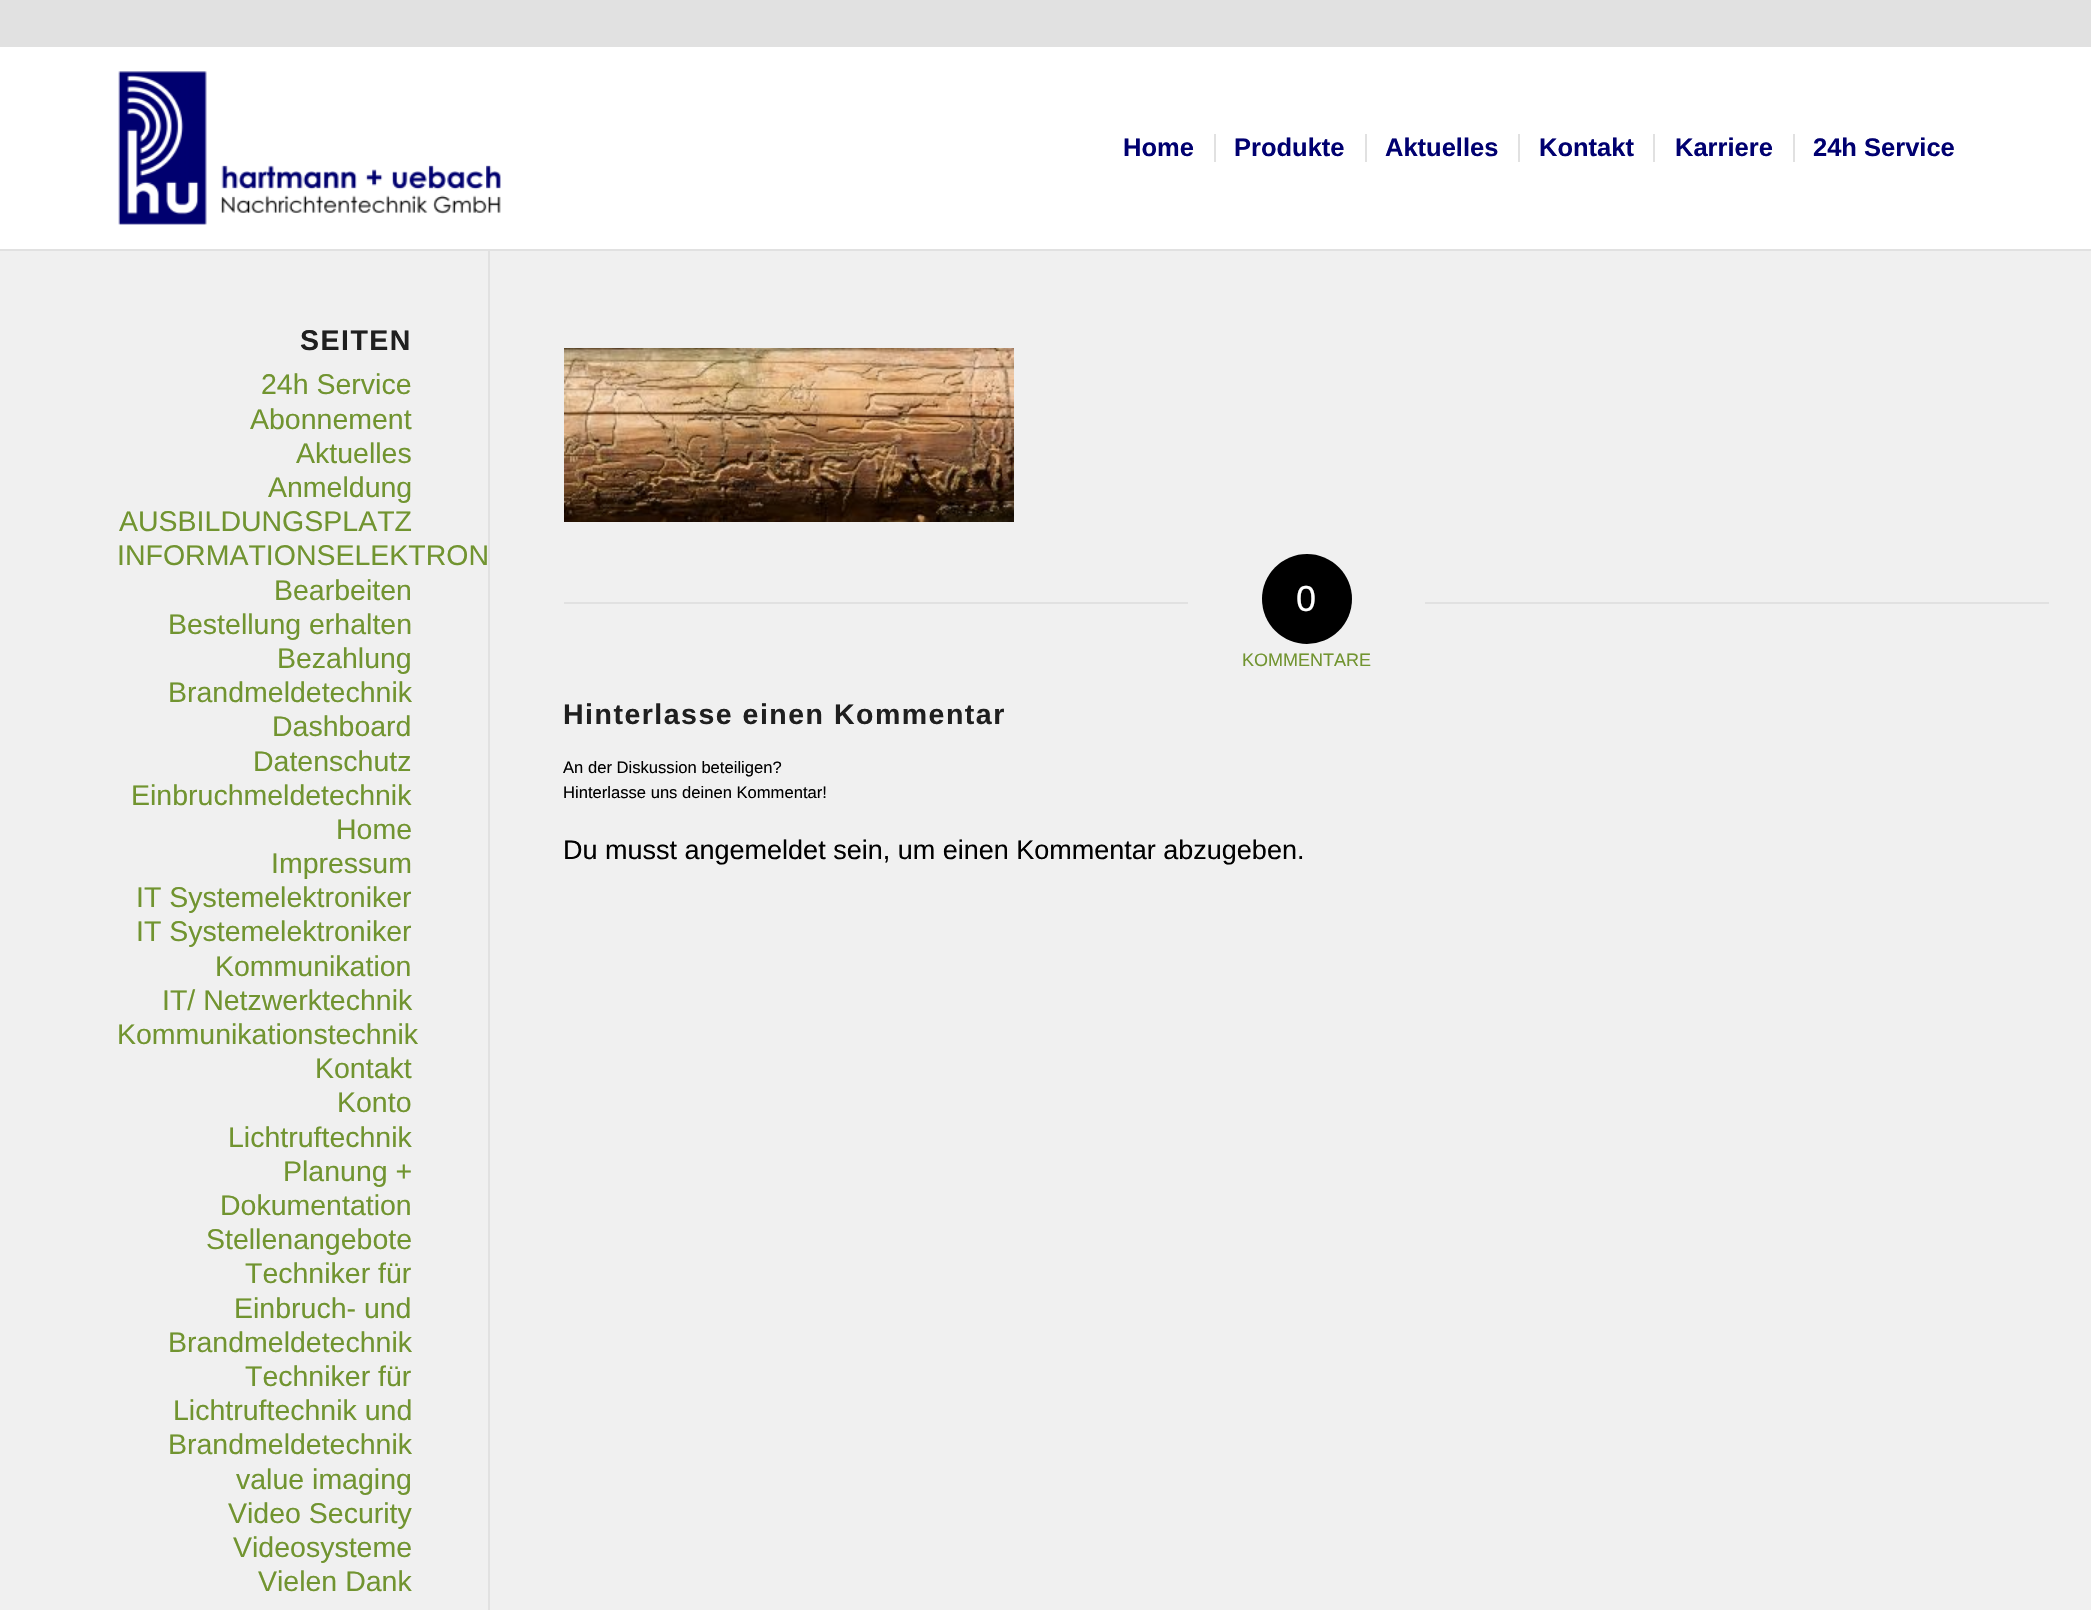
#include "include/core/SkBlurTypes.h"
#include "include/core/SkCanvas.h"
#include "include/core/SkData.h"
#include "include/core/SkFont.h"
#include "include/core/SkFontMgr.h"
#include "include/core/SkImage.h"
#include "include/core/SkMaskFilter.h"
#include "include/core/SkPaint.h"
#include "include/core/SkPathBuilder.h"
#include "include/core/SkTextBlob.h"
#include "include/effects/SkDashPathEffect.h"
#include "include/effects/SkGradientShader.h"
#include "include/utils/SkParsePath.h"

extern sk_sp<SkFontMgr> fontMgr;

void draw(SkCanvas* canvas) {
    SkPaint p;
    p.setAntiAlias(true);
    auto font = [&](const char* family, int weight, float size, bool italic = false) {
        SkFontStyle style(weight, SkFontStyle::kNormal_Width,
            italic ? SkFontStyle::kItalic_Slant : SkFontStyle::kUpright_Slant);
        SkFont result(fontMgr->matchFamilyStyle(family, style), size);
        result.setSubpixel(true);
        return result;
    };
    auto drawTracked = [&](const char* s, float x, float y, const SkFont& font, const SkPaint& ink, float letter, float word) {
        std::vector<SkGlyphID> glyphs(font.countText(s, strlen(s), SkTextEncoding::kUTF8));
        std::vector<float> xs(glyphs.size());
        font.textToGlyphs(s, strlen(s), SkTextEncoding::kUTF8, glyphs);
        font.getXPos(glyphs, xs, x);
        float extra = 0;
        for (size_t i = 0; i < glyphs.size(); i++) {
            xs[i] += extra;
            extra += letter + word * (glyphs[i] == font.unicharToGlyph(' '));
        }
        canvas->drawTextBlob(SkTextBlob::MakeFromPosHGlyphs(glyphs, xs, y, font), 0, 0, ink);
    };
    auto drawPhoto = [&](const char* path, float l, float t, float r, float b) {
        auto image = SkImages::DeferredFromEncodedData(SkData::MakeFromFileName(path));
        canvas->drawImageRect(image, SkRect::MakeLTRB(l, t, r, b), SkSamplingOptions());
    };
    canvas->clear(0xFFF0F0F0);
    {
        const struct { float l, t, r, b; SkColor color; } items[] = {
            {0, 0, 2091, 47, 0xFFE1E1E1},
            {0, 47, 2091, 249, 0xFFFFFFFF},
            {0, 249, 2091, 251, 0xFFE1E1E1},
        };
        for (auto [l, t, r, b, color] : items) {
            p.setColor(color);
            canvas->drawRect(SkRect::MakeLTRB(l, t, r, b), p);
        }
    }
    drawPhoto("media/1.png", 118, 71, 501, 225);
    auto font1 = font("Liberation Sans", 700, 25.5f);
    p.setColor(0xFF000070);
    canvas->drawString("Home", 1123, 156, font1, p);
    canvas->drawString("Produkte", 1234, 156, font1, p);
    p.setColor(0xFFE1E1E1);
    canvas->drawRect(SkRect::MakeLTRB(1214, 134, 1216, 162), p);
    p.setColor(0xFF000070);
    canvas->drawString("Aktuelles", 1385, 156, font1, p);
    p.setColor(0xFFE1E1E1);
    canvas->drawRect(SkRect::MakeLTRB(1365, 134, 1367, 162), p);
    p.setColor(0xFF000070);
    canvas->drawString("Kontakt", 1539, 156, font1, p);
    p.setColor(0xFFE1E1E1);
    canvas->drawRect(SkRect::MakeLTRB(1518, 134, 1520, 162), p);
    p.setColor(0xFF000070);
    canvas->drawString("Karriere", 1675, 156, font1, p);
    p.setColor(0xFFE1E1E1);
    canvas->drawRect(SkRect::MakeLTRB(1653, 134, 1655, 162), p);
    p.setColor(0xFF000070);
    canvas->drawString("24h Service", 1813, 156, font1, p);
    p.setColor(0xFFE1E1E1);
    canvas->drawRect(SkRect::MakeLTRB(1793, 134, 1795, 162), p);
    canvas->drawRect(SkRect::MakeLTRB(488, 251, 490, 1610), p);
    auto font2 = font("Liberation Sans", 700, 28.5f);
    p.setColor(0xFF1F1F1F);
    drawTracked("SEITEN", 300, 350, font2, p, 1.5f, 0);
    auto font3 = font("Liberation Sans", 400, 28.5f);
    p.setColor(0xFF719430);
    {
        const struct { const char* s; float x, y; } items[] = {
            {"24h Service", 261, 394},
            {"Abonnement", 250, 429},
            {"Aktuelles", 296, 463},
            {"Anmeldung", 268, 497},
            {"AUSBILDUNGSPLATZ", 119, 531},
            {"INFORMATIONSELEKTRON", 117, 565},
            {"Bearbeiten", 274, 600},
            {"Bestellung erhalten", 168, 634},
            {"Bezahlung", 277, 668},
            {"Brandmeldetechnik", 168, 702},
            {"Dashboard", 272, 736},
            {"Datenschutz", 253, 771},
            {"Einbruchmeldetechnik", 131, 805},
            {"Home", 336, 839},
            {"Impressum", 271, 873},
            {"IT Systemelektroniker", 136, 907},
            {"IT Systemelektroniker", 136, 941},
            {"Kommunikation", 215, 976},
            {"IT/ Netzwerktechnik", 162, 1010},
            {"Kommunikationstechnik", 117, 1044},
            {"Kontakt", 315, 1078},
            {"Konto", 337, 1112},
            {"Lichtruftechnik", 228, 1147},
            {"Planung +", 283, 1181},
            {"Dokumentation", 220, 1215},
            {"Stellenangebote", 206, 1249},
            {"Techniker für", 245, 1283},
            {"Einbruch- und", 234, 1318},
            {"Brandmeldetechnik", 168, 1352},
            {"Techniker für", 245, 1386},
            {"Lichtruftechnik und", 173, 1420},
            {"Brandmeldetechnik", 168, 1454},
            {"value imaging", 236, 1489},
            {"Video Security", 228, 1523},
            {"Videosysteme", 233, 1557},
            {"Vielen Dank", 258, 1591},
        };
        for (auto [s, x, y] : items) {
            canvas->drawString(s, x, y, font3, p);
        }
    }
    drawPhoto("media/2.png", 564, 348, 1014, 522);
    p.setColor(0xFFE1E1E1);
    canvas->drawRect(SkRect::MakeLTRB(564, 602, 1188, 604), p);
    p.setColor(0xFF000000);
    canvas->drawCircle(1307, 599, 45, p);
    auto font4 = font("Liberation Sans", 400, 36);
    p.setColor(0xFFFFFFFF);
    canvas->drawString("0", 1296, 611, font4, p);
    p.setColor(0xFFE1E1E1);
    canvas->drawRect(SkRect::MakeLTRB(1425, 602, 2049, 604), p);
    auto font5 = font("Liberation Sans", 400, 18);
    p.setColor(0xFF719430);
    canvas->drawString("KOMMENTARE", 1242, 666, font5, p);
    p.setColor(0xFF1F1F1F);
    drawTracked("Hinterlasse einen Kommentar", 563, 724, font2, p, 1.5f, 0);
    auto font6 = font("Liberation Sans", 400, 16.6f);
    p.setColor(0xFF000000);
    canvas->drawString("An der Diskussion beteiligen?", 563, 773, font6, p);
    canvas->drawString("Hinterlasse uns deinen Kommentar!", 563, 798, font6, p);
    auto font7 = font("Liberation Sans", 400, 27);
    canvas->drawString("Du musst angemeldet sein, um einen Kommentar abzugeben.", 563, 859, font7, p);
}
